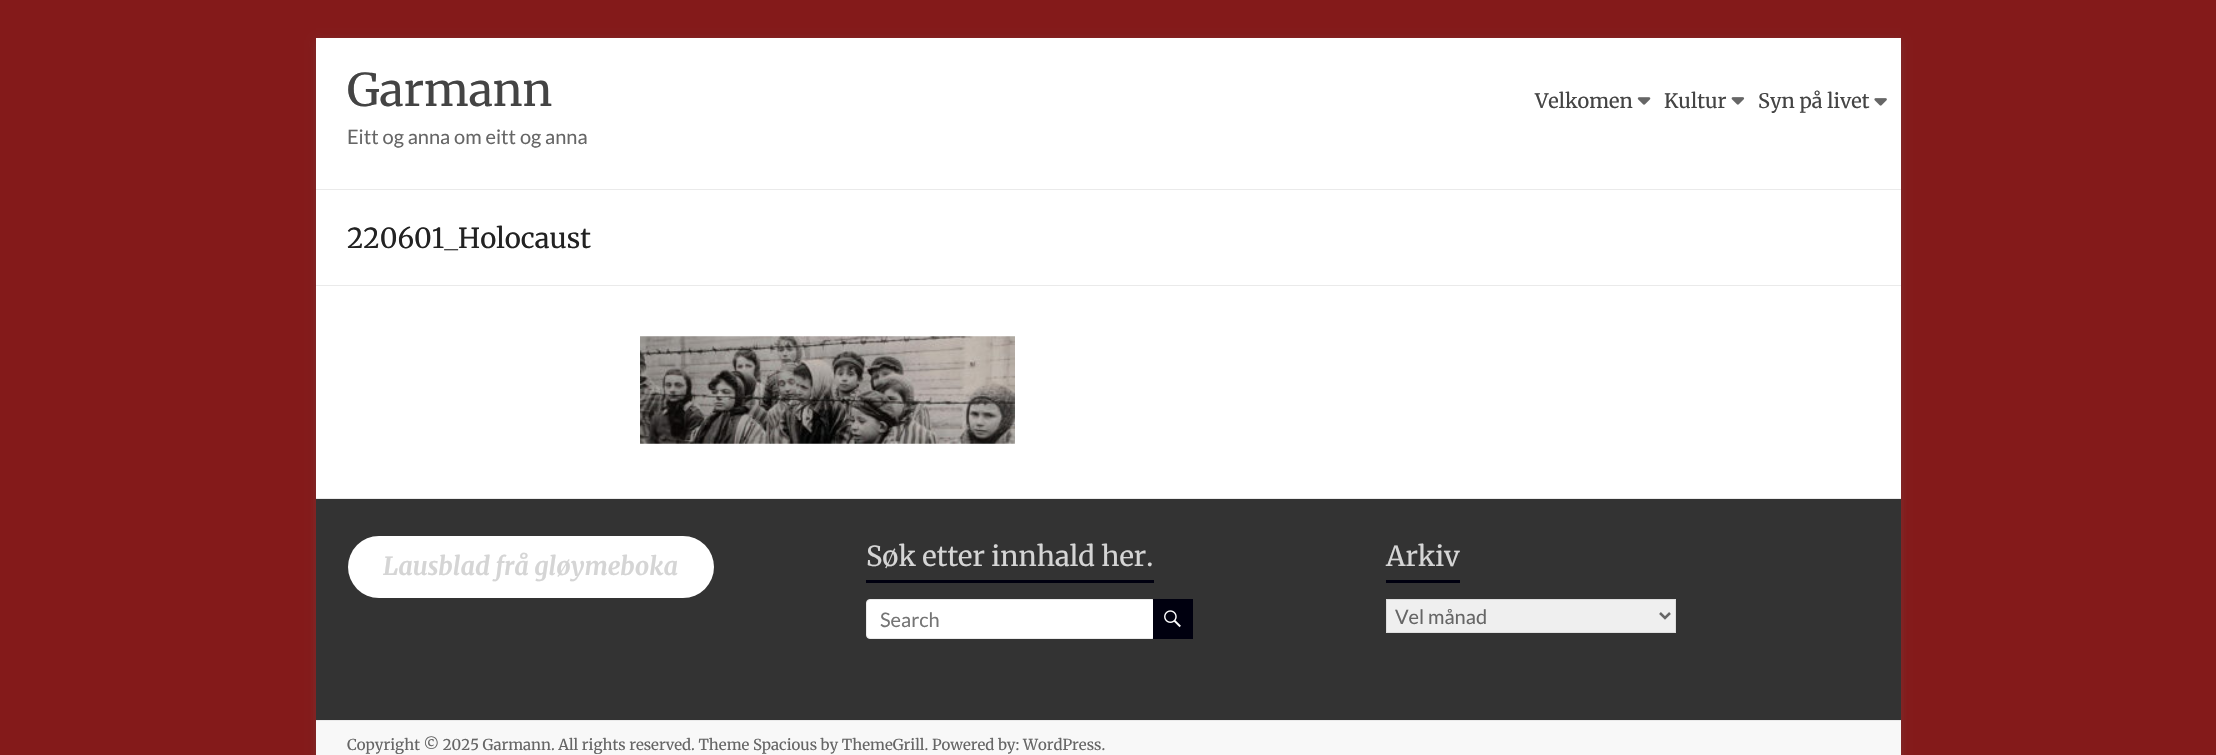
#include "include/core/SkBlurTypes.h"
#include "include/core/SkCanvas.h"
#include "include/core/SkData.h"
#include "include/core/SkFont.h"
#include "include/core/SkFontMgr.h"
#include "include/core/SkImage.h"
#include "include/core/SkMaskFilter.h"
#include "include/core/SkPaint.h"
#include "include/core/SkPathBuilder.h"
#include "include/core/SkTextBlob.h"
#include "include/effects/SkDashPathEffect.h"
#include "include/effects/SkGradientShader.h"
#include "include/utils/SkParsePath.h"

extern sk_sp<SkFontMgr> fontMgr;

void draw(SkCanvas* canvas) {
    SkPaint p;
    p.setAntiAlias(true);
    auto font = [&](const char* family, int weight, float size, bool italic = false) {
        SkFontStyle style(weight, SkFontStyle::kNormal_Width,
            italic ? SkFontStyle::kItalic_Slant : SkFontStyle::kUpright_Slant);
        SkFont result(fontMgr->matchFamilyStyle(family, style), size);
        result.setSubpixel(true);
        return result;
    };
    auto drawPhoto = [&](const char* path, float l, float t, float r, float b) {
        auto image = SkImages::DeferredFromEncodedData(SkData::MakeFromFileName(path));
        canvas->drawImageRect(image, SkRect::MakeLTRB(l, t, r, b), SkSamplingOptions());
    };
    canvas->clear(0xFF841A1A);
    p.setColor(0x4D646464);
    p.setMaskFilter(SkMaskFilter::MakeBlur(kNormal_SkBlurStyle, 4));
    canvas->drawRect(SkRect::MakeLTRB(316, 40, 1901, 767), p);
    p.setMaskFilter(nullptr);
    p.setColor(0xFFFFFFFF);
    canvas->drawRect(SkRect::MakeLTRB(316, 38, 1901, 498), p);
    p.setColor(0xFFEAEAEA);
    canvas->drawRect(SkRect::MakeLTRB(316, 189, 1901, 190), p);
    auto font1 = font("Merriweather", 400, 45);
    p.setColor(0xFF444444);
    canvas->drawString("Garmann", 347, 106, font1, p);
    auto font2 = font("Lato", 400, 20);
    p.setColor(0xFF666666);
    canvas->drawString("Eitt og anna om eitt og anna", 347, 144, font2, p);
    auto font3 = font("Merriweather", 400, 20);
    p.setColor(0xFF444444);
    canvas->drawString("Velkomen", 1535, 108, font3, p);
    drawPhoto("media/1.png", 1637, 97, 1651, 105);
    canvas->drawString("Kultur", 1664, 108, font3, p);
    drawPhoto("media/2.png", 1731, 97, 1745, 105);
    canvas->drawString("Syn på livet", 1758, 108, font3, p);
    drawPhoto("media/3.png", 1874, 98, 1887, 106);
    p.setColor(0xFFEAEAEA);
    canvas->drawRect(SkRect::MakeLTRB(316, 285, 1901, 286), p);
    auto font4 = font("Merriweather", 400, 27.5f);
    p.setColor(0xFF222222);
    canvas->drawString("220601_Holocaust", 347, 248, font4, p);
    drawPhoto("media/4.png", 640, 336, 1015, 444);
    p.setColor(0xFF333333);
    canvas->drawRect(SkRect::MakeLTRB(316, 499, 1901, 720), p);
    p.setColor(0xFFEAEAEA);
    canvas->drawRect(SkRect::MakeLTRB(316, 498, 1901, 499), p);
    p.setColor(0xFFFFFFFF);
    canvas->drawRoundRect(SkRect::MakeLTRB(348, 536, 714, 598), 31, 31, p);
    auto font5 = font("Merriweather", 700, 25, true);
    p.setColor(0xFFD5D5D5);
    canvas->drawString("Lausblad frå gløymeboka", 383, 575, font5, p);
    canvas->drawString("Søk etter innhald her.", 866, 566, font4, p);
    p.setColor(0xFF00000F);
    canvas->drawRect(SkRect::MakeLTRB(866, 580, 1154, 583), p);
    p.setColor(0xFFFFFFFF);
    canvas->drawRoundRect(SkRect::MakeLTRB(866.5f, 599.5f, 1155.5f, 638.5f), 3.5f, 3.5f, p);
    p.setStyle(SkPaint::kStroke_Style);
    p.setStrokeWidth(1);
    p.setColor(0xFFEAEAEA);
    canvas->drawRoundRect(SkRect::MakeLTRB(866.5f, 599.5f, 1155.5f, 638.5f), 3.5f, 3.5f, p);
    p.setStyle(SkPaint::kFill_Style);
    p.setColor(0xFF757575);
    canvas->drawString("Search", 880, 627, font2, p);
    p.setColor(0xFF00000F);
    canvas->drawRect(SkRect::MakeLTRB(1153, 599, 1193, 639), p);
    drawPhoto("media/5.png", 1164, 610, 1181, 628);
    p.setColor(0xFFD5D5D5);
    canvas->drawString("Arkiv", 1386, 566, font4, p);
    p.setColor(0xFF00000F);
    canvas->drawRect(SkRect::MakeLTRB(1386, 580, 1460, 583), p);
    p.setColor(0xFFEFEFEF);
    canvas->drawRect(SkRect::MakeLTRB(1386.5f, 599.5f, 1675.5f, 632.5f), p);
    p.setStyle(SkPaint::kStroke_Style);
    p.setColor(0xFFDDDDDD);
    canvas->drawRect(SkRect::MakeLTRB(1386.5f, 599.5f, 1675.5f, 632.5f), p);
    p.setStrokeWidth(2.5f);
    p.setColor(0xFF666666);
    canvas->drawPath(SkPathBuilder().moveTo(1660, 613).lineTo(1665, 618).lineTo(1670, 613).detach(), p);
    p.setStyle(SkPaint::kFill_Style);
    canvas->drawString("Vel månad", 1395, 624, font2, p);
    p.setColor(0xFFF8F8F8);
    canvas->drawRect(SkRect::MakeLTRB(316, 721, 1901, 755), p);
    p.setColor(0xFFEAEAEA);
    canvas->drawRect(SkRect::MakeLTRB(316, 720, 1901, 721), p);
    auto font6 = font("Merriweather", 400, 15);
    p.setColor(0xFF666666);
    canvas->drawString("Copyright © 2025 Garmann. All rights reserved. Theme Spacious by ThemeGrill. Powered by: WordPress.", 347, 750, font6, p);
}
